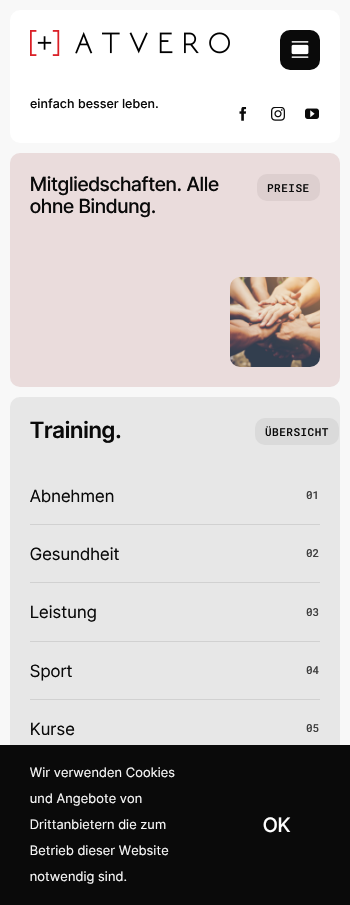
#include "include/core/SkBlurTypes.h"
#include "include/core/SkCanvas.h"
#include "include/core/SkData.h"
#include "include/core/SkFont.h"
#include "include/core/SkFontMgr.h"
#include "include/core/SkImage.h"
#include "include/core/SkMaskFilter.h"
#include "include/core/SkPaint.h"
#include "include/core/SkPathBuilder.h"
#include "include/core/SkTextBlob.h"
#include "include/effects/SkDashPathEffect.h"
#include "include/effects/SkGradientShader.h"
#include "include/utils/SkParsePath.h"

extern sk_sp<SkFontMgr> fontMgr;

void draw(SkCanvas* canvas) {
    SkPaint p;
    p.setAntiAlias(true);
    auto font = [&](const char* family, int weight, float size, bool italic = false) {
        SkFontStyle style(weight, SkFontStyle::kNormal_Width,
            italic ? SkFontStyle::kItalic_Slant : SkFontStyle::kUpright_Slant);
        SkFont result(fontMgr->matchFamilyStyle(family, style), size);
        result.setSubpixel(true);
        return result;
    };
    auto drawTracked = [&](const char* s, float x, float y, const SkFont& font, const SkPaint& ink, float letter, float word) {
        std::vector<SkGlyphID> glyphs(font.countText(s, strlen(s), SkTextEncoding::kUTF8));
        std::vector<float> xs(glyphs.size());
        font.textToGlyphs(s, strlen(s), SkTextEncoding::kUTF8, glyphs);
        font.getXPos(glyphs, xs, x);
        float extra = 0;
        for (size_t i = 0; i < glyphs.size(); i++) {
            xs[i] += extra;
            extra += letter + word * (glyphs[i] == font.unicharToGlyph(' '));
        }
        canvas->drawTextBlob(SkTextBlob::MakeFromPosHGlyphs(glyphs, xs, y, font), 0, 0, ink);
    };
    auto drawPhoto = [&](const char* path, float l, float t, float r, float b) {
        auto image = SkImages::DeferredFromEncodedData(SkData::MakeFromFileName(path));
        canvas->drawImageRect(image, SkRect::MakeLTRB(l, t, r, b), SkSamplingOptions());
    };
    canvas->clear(0xFFF8F8F8);
    p.setColor(0xFFFFFFFF);
    canvas->drawRoundRect(SkRect::MakeLTRB(10, 10, 340, 143), 10, 10, p);
    drawPhoto("media/1.png", 30, 30, 230, 56);
    p.setColor(0xFF0A0A0A);
    canvas->drawRoundRect(SkRect::MakeLTRB(281, 31, 319, 69), 9, 9, p);
    p.setStyle(SkPaint::kStroke_Style);
    p.setStrokeWidth(2);
    canvas->drawRoundRect(SkRect::MakeLTRB(281, 31, 319, 69), 9, 9, p);
    drawPhoto("media/2.png", 291, 41, 309, 58);
    auto font1 = font("Inter", 500, 12.5f);
    p.setStyle(SkPaint::kFill_Style);
    canvas->drawString("einfach besser leben.", 30, 108, font1, p);
    drawPhoto("media/3.png", 239, 107, 247, 121);
    drawPhoto("media/4.png", 271, 107, 285, 121);
    drawPhoto("media/5.png", 305, 108, 319, 119);
    p.setColor(0xFFEADCDC);
    canvas->drawRoundRect(SkRect::MakeLTRB(10, 153, 340, 387), 10, 10, p);
    auto font2 = font("Inter Tight", 500, 19.5f);
    p.setColor(0xFF0A0A0A);
    drawTracked("Mitgliedschaften. Alle", 30, 191, font2, p, 0.2f, 0);
    drawTracked("ohne Bindung.", 30, 213, font2, p, 0.2f, 0);
    p.setColor(0xFFDDCFCF);
    canvas->drawRoundRect(SkRect::MakeLTRB(257, 174, 320, 201), 10, 10, p);
    auto font3 = font("Roboto Mono", 500, 11);
    p.setColor(0xFF0A0A0A);
    drawTracked("PREISE", 267, 192, font3, p, 0.5f, 0);
    drawPhoto("media/6.png", 230, 277, 320, 367);
    p.setColor(0xFFE7E7E7);
    canvas->drawRoundRect(SkRect::MakeLTRB(10, 397, 340, 819), 10, 10, p);
    auto font4 = font("Inter Tight", 600, 22.5f);
    p.setColor(0xFF0A0A0A);
    drawTracked("Training.", 30, 438, font4, p, 0.25f, 0);
    p.setColor(0xFFDADADA);
    canvas->drawRoundRect(SkRect::MakeLTRB(255, 418, 339, 445), 10, 10, p);
    p.setColor(0xFF0A0A0A);
    drawTracked("ÜBERSICHT", 265, 436, font3, p, 0.5f, 0);
    p.setColor(0xFFD1D1D1);
    canvas->drawRect(SkRect::MakeLTRB(30, 524, 320, 525), p);
    auto font5 = font("Inter Tight", 400, 17);
    p.setColor(0xFF0A0A0A);
    drawTracked("Abnehmen", 30, 502, font5, p, 0.6f, 0);
    p.setColor(0xFF3F3F3F);
    canvas->drawString("01", 306, 499, font3, p);
    p.setColor(0xFFD1D1D1);
    canvas->drawRect(SkRect::MakeLTRB(30, 582, 320, 583), p);
    p.setColor(0xFF0A0A0A);
    drawTracked("Gesundheit", 30, 560, font5, p, 0.6f, 0);
    p.setColor(0xFF3F3F3F);
    canvas->drawString("02", 306, 557, font3, p);
    p.setColor(0xFFD1D1D1);
    canvas->drawRect(SkRect::MakeLTRB(30, 641, 320, 642), p);
    p.setColor(0xFF0A0A0A);
    drawTracked("Leistung", 30, 618, font5, p, 0.6f, 0);
    p.setColor(0xFF3F3F3F);
    canvas->drawString("03", 306, 616, font3, p);
    p.setColor(0xFFD1D1D1);
    canvas->drawRect(SkRect::MakeLTRB(30, 699, 320, 700), p);
    p.setColor(0xFF0A0A0A);
    drawTracked("Sport", 30, 677, font5, p, 0.6f, 0);
    p.setColor(0xFF3F3F3F);
    canvas->drawString("04", 306, 674, font3, p);
    p.setColor(0xFF0A0A0A);
    drawTracked("Kurse", 30, 735, font5, p, 0.6f, 0);
    p.setColor(0xFF3F3F3F);
    canvas->drawString("05", 306, 732, font3, p);
    p.setColor(0xFF0A0A0A);
    canvas->drawRect(SkRect::MakeLTRB(0, 745, 350, 905), p);
    auto font6 = font("Inter Tight", 400, 13);
    p.setColor(0xFFF8F8F8);
    {
        const struct { const char* s; float x, y; } items[] = {
            {"Wir verwenden Cookies", 30, 777},
            {"und Angebote von", 30, 803},
            {"Drittanbietern die zum", 30, 829},
            {"Betrieb dieser Website", 30, 855},
            {"notwendig sind.", 30, 881},
        };
        for (auto [s, x, y] : items) {
            drawTracked(s, x, y, font6, p, 0.6f, 0);
        }
    }
    auto font7 = font("Inter Tight", 500, 20);
    p.setColor(0xFFFFFFFF);
    drawTracked("OK", 263, 832, font7, p, 0.2f, 0);
}
